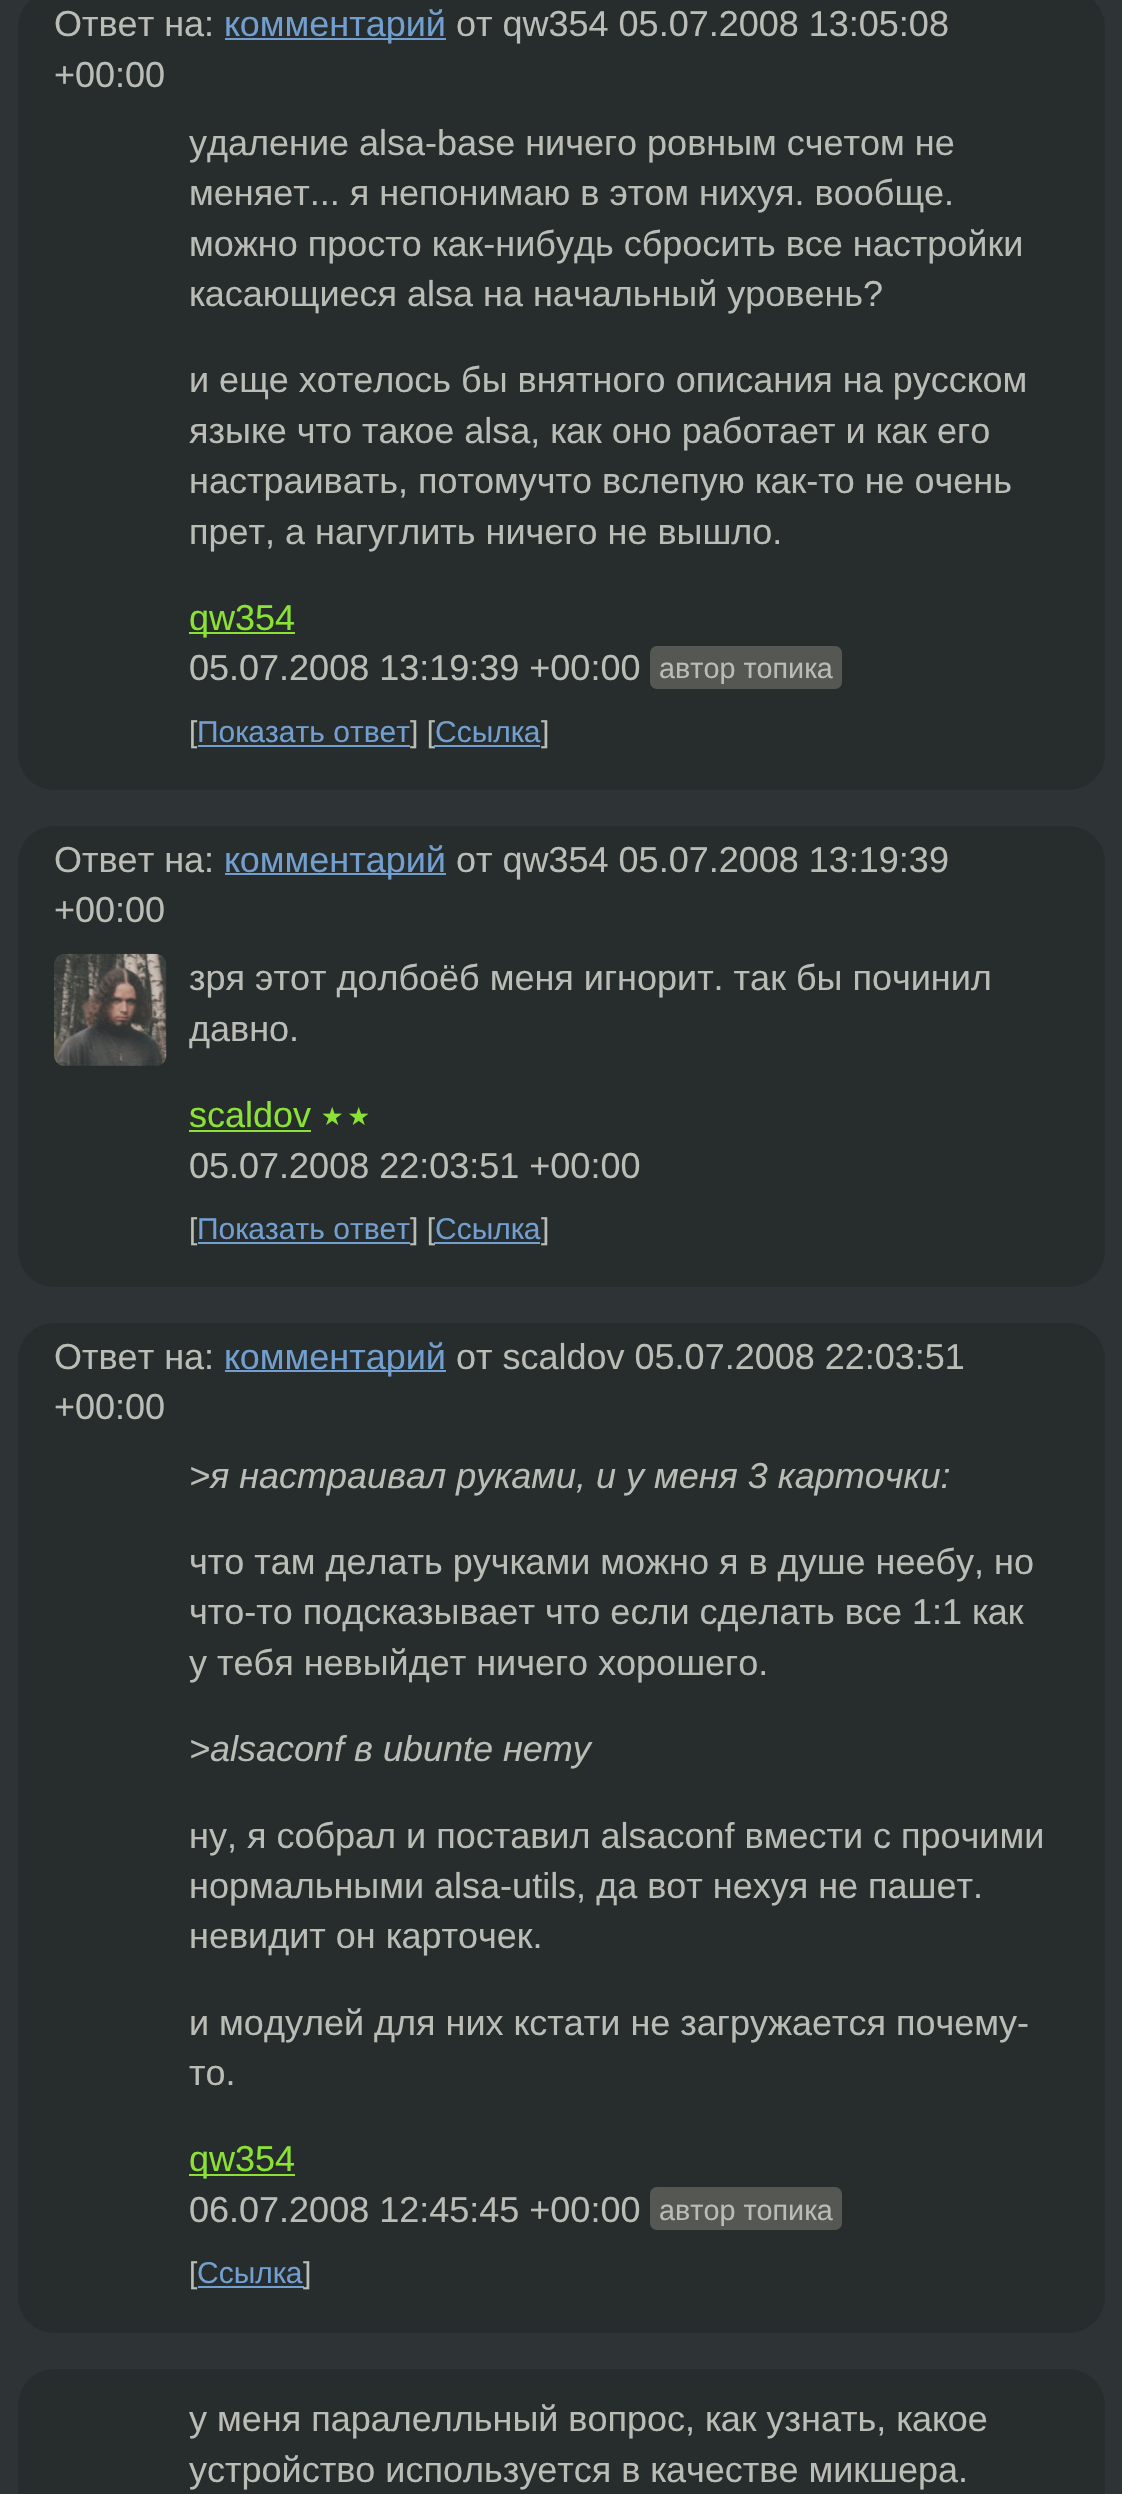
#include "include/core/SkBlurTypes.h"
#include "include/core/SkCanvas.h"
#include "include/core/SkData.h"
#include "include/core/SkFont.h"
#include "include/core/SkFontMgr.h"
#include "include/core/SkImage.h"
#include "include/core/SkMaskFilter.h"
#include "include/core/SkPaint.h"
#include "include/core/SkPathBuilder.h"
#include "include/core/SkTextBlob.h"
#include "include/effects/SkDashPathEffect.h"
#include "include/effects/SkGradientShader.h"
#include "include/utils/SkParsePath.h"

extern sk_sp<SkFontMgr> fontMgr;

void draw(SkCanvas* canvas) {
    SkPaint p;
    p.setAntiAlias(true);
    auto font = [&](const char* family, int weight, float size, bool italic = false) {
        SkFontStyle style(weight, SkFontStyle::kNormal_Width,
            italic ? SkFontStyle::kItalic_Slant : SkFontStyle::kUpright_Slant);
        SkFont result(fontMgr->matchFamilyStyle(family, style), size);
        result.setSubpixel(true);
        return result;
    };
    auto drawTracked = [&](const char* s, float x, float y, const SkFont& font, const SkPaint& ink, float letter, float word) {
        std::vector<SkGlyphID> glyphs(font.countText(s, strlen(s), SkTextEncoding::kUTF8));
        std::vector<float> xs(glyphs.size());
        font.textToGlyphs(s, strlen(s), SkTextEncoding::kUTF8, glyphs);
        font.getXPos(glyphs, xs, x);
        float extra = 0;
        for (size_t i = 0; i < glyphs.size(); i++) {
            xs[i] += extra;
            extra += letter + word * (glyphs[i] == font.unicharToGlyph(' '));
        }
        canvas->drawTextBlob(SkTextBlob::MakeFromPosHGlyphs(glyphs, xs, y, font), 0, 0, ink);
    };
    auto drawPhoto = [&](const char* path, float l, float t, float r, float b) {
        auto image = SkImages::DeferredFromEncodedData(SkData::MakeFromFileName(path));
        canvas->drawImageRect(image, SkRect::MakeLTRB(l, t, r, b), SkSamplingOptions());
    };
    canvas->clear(0xFF2E3436);
    p.setColor(0xFF272C2D);
    canvas->drawRoundRect(SkRect::MakeLTRB(18, -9, 1105, 790), 36, 36, p);
    auto font1 = font("Liberation Sans", 400, 36);
    p.setColor(0xFFBABDB6);
    canvas->drawString("Ответ на:", 54, 36, font1, p);
    p.setColor(0xFF729FCF);
    canvas->drawRect(SkRect::MakeLTRB(225, 38, 446, 40), p);
    canvas->drawString("комментарий", 224, 36, font1, p);
    p.setColor(0xFFBABDB6);
    {
        const struct { const char* s; float x, y; } items[] = {
            {"от qw354 05.07.2008 13:05:08", 456, 36},
            {"+00:00", 54, 87},
            {"удаление alsa-base ничего ровным счетом не", 189, 155},
            {"меняет... я непонимаю в этом нихуя. вообще.", 189, 205},
            {"можно просто как-нибудь сбросить все настройки", 189, 256},
            {"касающиеся alsa на начальный уровень?", 189, 306},
            {"и еще хотелось бы внятного описания на русском", 189, 392},
            {"языке что такое alsa, как оно работает и как его", 189, 443},
            {"настраивать, потомучто вслепую как-то не очень", 189, 493},
            {"прет, а нагуглить ничего не вышло.", 189, 544},
        };
        for (auto [s, x, y] : items) {
            canvas->drawString(s, x, y, font1, p);
        }
    }
    p.setColor(0xFF8AE234);
    canvas->drawRect(SkRect::MakeLTRB(189, 632, 295, 634), p);
    canvas->drawString("qw354", 189, 630, font1, p);
    p.setColor(0xFFBABDB6);
    canvas->drawString("05.07.2008 13:19:39 +00:00", 189, 680, font1, p);
    p.setColor(0xFF555753);
    canvas->drawRoundRect(SkRect::MakeLTRB(650, 646, 842, 689), 7, 7, p);
    auto font2 = font("Liberation Sans", 400, 28.75f);
    p.setColor(0xFFBABDB6);
    canvas->drawString("автор топика", 659, 678, font2, p);
    auto font3 = font("Liberation Sans", 400, 30);
    canvas->drawString("[", 189, 742, font3, p);
    p.setColor(0xFF729FCF);
    canvas->drawRect(SkRect::MakeLTRB(198, 745, 410, 747), p);
    canvas->drawString("Показать ответ", 197, 742, font3, p);
    p.setColor(0xFFBABDB6);
    canvas->drawString("] [", 410, 742, font3, p);
    p.setColor(0xFF729FCF);
    canvas->drawRect(SkRect::MakeLTRB(434, 745, 540, 747), p);
    canvas->drawString("Ссылка", 435, 742, font3, p);
    p.setColor(0xFFBABDB6);
    canvas->drawString("]", 541, 742, font3, p);
    p.setColor(0xFF272C2D);
    canvas->drawRoundRect(SkRect::MakeLTRB(18, 826, 1105, 1287), 36, 36, p);
    p.setColor(0xFFBABDB6);
    canvas->drawString("Ответ на:", 54, 872, font1, p);
    p.setColor(0xFF729FCF);
    canvas->drawRect(SkRect::MakeLTRB(225, 873, 446, 875), p);
    canvas->drawString("комментарий", 224, 872, font1, p);
    p.setColor(0xFFBABDB6);
    canvas->drawString("от qw354 05.07.2008 13:19:39", 456, 872, font1, p);
    canvas->drawString("+00:00", 54, 922, font1, p);
    drawPhoto("media/1.png", 54, 953, 167, 1066);
    canvas->drawString("зря этот долбоёб меня игнорит. так бы починил", 189, 990, font1, p);
    canvas->drawString("давно.", 189, 1041, font1, p);
    p.setColor(0xFF8AE234);
    canvas->drawString("scaldov", 189, 1127, font1, p);
    canvas->drawRect(SkRect::MakeLTRB(189, 1130, 311, 1132), p);
    auto font4 = font("DejaVu Sans", 400, 25);
    drawTracked("★★", 321, 1125, font4, p, 4, 0);
    p.setColor(0xFFBABDB6);
    canvas->drawString("05.07.2008 22:03:51 +00:00", 189, 1178, font1, p);
    canvas->drawString("[", 189, 1239, font3, p);
    p.setColor(0xFF729FCF);
    canvas->drawRect(SkRect::MakeLTRB(198, 1242, 410, 1244), p);
    canvas->drawString("Показать ответ", 197, 1239, font3, p);
    p.setColor(0xFFBABDB6);
    canvas->drawString("] [", 410, 1239, font3, p);
    p.setColor(0xFF729FCF);
    canvas->drawRect(SkRect::MakeLTRB(434, 1242, 540, 1244), p);
    canvas->drawString("Ссылка", 435, 1239, font3, p);
    p.setColor(0xFFBABDB6);
    canvas->drawString("]", 541, 1239, font3, p);
    p.setColor(0xFF272C2D);
    canvas->drawRoundRect(SkRect::MakeLTRB(18, 1323, 1105, 2333), 36, 36, p);
    p.setColor(0xFFBABDB6);
    canvas->drawString("Ответ на:", 54, 1369, font1, p);
    p.setColor(0xFF729FCF);
    canvas->drawRect(SkRect::MakeLTRB(225, 1370, 446, 1372), p);
    canvas->drawString("комментарий", 224, 1369, font1, p);
    p.setColor(0xFFBABDB6);
    canvas->drawString("от scaldov 05.07.2008 22:03:51", 456, 1369, font1, p);
    canvas->drawString("+00:00", 54, 1419, font1, p);
    auto font5 = font("Liberation Sans", 400, 36, true);
    canvas->drawString(">я настраивал руками, и у меня 3 карточки:", 189, 1488, font5, p);
    {
        const struct { const char* s; float x, y; } items[] = {
            {"что там делать ручками можно я в душе неебу, но", 189, 1574},
            {"что-то подсказывает что если сделать все 1:1 как", 189, 1624},
            {"у тебя невыйдет ничего хорошего.", 189, 1675},
        };
        for (auto [s, x, y] : items) {
            canvas->drawString(s, x, y, font1, p);
        }
    }
    canvas->drawString(">alsaconf в ubunte нету", 189, 1761, font5, p);
    {
        const struct { const char* s; float x, y; } items[] = {
            {"ну, я собрал и поставил alsaconf вмести с прочими", 189, 1848},
            {"нормальными alsa-utils, да вот нехуя не пашет.", 189, 1898},
            {"невидит он карточек.", 189, 1948},
            {"и модулей для них кстати не загружается почему-", 189, 2035},
            {"то.", 189, 2085},
        };
        for (auto [s, x, y] : items) {
            canvas->drawString(s, x, y, font1, p);
        }
    }
    p.setColor(0xFF8AE234);
    canvas->drawRect(SkRect::MakeLTRB(189, 2174, 295, 2176), p);
    canvas->drawString("qw354", 189, 2171, font1, p);
    p.setColor(0xFFBABDB6);
    canvas->drawString("06.07.2008 12:45:45 +00:00", 189, 2222, font1, p);
    p.setColor(0xFF555753);
    canvas->drawRoundRect(SkRect::MakeLTRB(650, 2187, 842, 2230), 7, 7, p);
    p.setColor(0xFFBABDB6);
    canvas->drawString("автор топика", 659, 2220, font2, p);
    canvas->drawString("[", 189, 2283, font3, p);
    p.setColor(0xFF729FCF);
    canvas->drawRect(SkRect::MakeLTRB(198, 2286, 304, 2288), p);
    canvas->drawString("Ссылка", 197, 2283, font3, p);
    p.setColor(0xFFBABDB6);
    canvas->drawString("]", 303, 2283, font3, p);
    p.setColor(0xFF272C2D);
    canvas->drawRoundRect(SkRect::MakeLTRB(18, 2369, 1105, 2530), 36, 36, p);
    p.setColor(0xFFBABDB6);
    canvas->drawString("у меня паралелльный вопрос, как узнать, какое", 189, 2431, font1, p);
    canvas->drawString("устройство используется в качестве микшера.", 189, 2482, font1, p);
}
